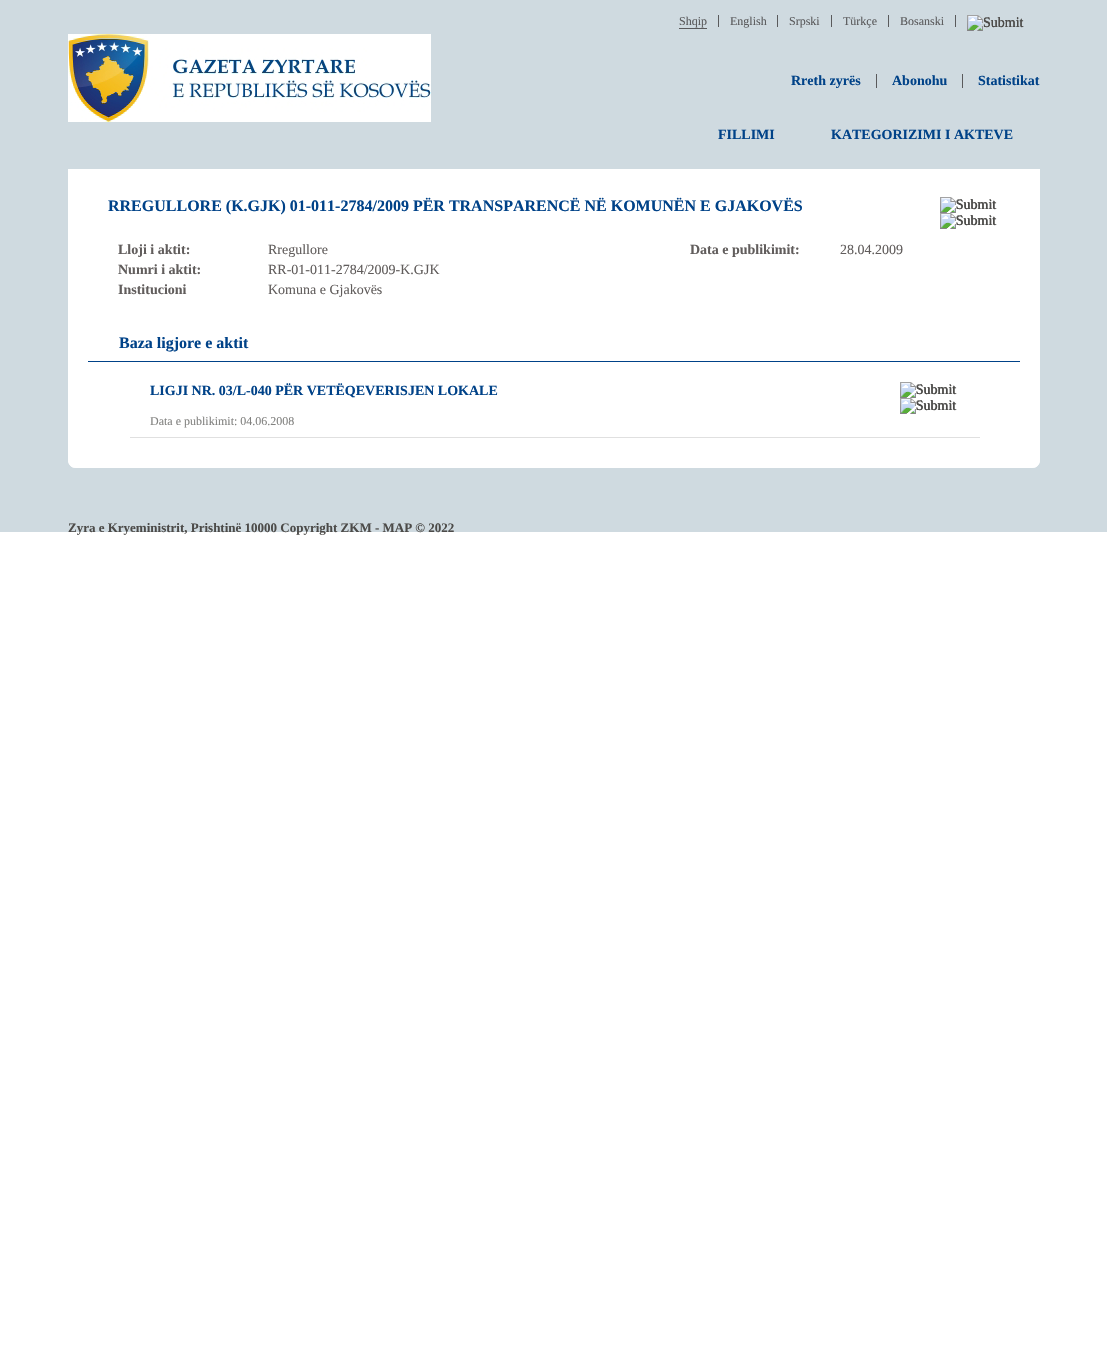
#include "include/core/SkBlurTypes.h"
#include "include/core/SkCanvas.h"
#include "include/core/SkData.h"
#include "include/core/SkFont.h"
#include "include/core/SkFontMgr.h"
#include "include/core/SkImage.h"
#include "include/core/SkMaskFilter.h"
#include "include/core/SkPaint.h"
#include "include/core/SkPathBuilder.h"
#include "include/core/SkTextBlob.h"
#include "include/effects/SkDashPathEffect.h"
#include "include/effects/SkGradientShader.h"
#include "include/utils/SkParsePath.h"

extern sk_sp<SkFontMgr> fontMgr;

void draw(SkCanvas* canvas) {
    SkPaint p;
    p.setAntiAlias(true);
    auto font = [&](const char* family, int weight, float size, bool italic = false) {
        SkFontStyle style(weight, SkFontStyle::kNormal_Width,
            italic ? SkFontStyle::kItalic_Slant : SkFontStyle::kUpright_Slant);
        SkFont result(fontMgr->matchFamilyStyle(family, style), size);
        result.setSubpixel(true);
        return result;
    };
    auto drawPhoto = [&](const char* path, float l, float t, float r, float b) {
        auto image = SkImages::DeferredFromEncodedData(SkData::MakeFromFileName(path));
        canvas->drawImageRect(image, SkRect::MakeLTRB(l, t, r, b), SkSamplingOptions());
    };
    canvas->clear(0xFFFFFFFF);
    p.setColor(0xFFCFDAE0);
    canvas->drawRect(SkRect::MakeLTRB(0, 0, 1107, 532), p);
    p.setColor(0xFF5A5A5C);
    canvas->drawRect(SkRect::MakeLTRB(718, 15, 719, 27), p);
    auto font1 = font("Liberation Serif", 400, 12);
    canvas->drawString("Shqip", 679, 25, font1, p);
    canvas->drawRect(SkRect::MakeLTRB(679, 28, 707, 29), p);
    canvas->drawRect(SkRect::MakeLTRB(777, 15, 778, 27), p);
    canvas->drawString("English", 730, 25, font1, p);
    canvas->drawRect(SkRect::MakeLTRB(831, 15, 832, 27), p);
    canvas->drawString("Srpski", 789, 25, font1, p);
    canvas->drawRect(SkRect::MakeLTRB(888, 15, 889, 27), p);
    canvas->drawString("Türkçe", 843, 25, font1, p);
    canvas->drawRect(SkRect::MakeLTRB(955, 15, 956, 27), p);
    canvas->drawString("Bosanski", 900, 25, font1, p);
    drawPhoto("media/1.png", 967, 15, 1024, 31);
    auto font2 = font("Liberation Serif", 400, 14);
    p.setColor(0xFF4C4B49);
    canvas->drawString("Submit", 983, 27, font2, p);
    drawPhoto("media/2.png", 68, 34, 431, 122);
    p.setColor(0xFF5A5A5C);
    canvas->drawRect(SkRect::MakeLTRB(876, 74, 877, 88), p);
    auto font3 = font("Liberation Serif", 700, 14);
    p.setColor(0xFF004288);
    canvas->drawString("Rreth zyrës", 791, 85, font3, p);
    p.setColor(0xFF5A5A5C);
    canvas->drawRect(SkRect::MakeLTRB(962, 74, 963, 88), p);
    p.setColor(0xFF004288);
    {
        const struct { const char* s; float x, y; } items[] = {
            {"Abonohu", 892, 85},
            {"Statistikat", 978, 85},
            {"FILLIMI", 718, 139},
            {"KATEGORIZIMI I AKTEVE", 831, 139},
        };
        for (auto [s, x, y] : items) {
            canvas->drawString(s, x, y, font3, p);
        }
    }
    p.setColor(0xFFFFFFFF);
    canvas->drawPath(SkPathBuilder().moveTo(68, 169).lineTo(1040, 169).lineTo(1040, 460).cubicTo(1040, 464.5f, 1036.5f, 468, 1032, 468).lineTo(76, 468).cubicTo(71.5f, 468, 68, 464.5f, 68, 460).close().detach(), p);
    canvas->drawPath(SkPathBuilder().moveTo(68, 189).lineTo(1040, 189).lineTo(1040, 460).cubicTo(1040, 464.5f, 1036.5f, 468, 1032, 468).lineTo(76, 468).cubicTo(71.5f, 468, 68, 464.5f, 68, 460).close().detach(), p);
    auto font4 = font("Liberation Serif", 700, 16);
    p.setColor(0xFF004288);
    canvas->drawString("RREGULLORE (K.GJK) 01-011-2784/2009 PËR TRANSPARENCË NË KOMUNËN E GJAKOVËS", 108, 211, font4, p);
    drawPhoto("media/3.png", 940, 197, 996, 213);
    p.setColor(0xFF4C4B49);
    canvas->drawString("Submit", 956, 209, font2, p);
    drawPhoto("media/3.png", 940, 213, 996, 229);
    canvas->drawString("Submit", 956, 225, font2, p);
    p.setColor(0xFF615D5C);
    canvas->drawString("Lloji i aktit:", 118, 254, font3, p);
    canvas->drawString("Rregullore", 268, 254, font2, p);
    canvas->drawString("Numri i aktit:", 118, 274, font3, p);
    canvas->drawString("RR-01-011-2784/2009-K.GJK", 268, 274, font2, p);
    canvas->drawString("Institucioni", 118, 294, font3, p);
    canvas->drawString("Komuna e Gjakovës", 268, 294, font2, p);
    canvas->drawString("Data e publikimit:", 690, 254, font3, p);
    canvas->drawString("28.04.2009", 840, 254, font2, p);
    p.setColor(0xFF004288);
    canvas->drawRect(SkRect::MakeLTRB(88, 361, 1020, 362), p);
    canvas->drawString("Baza ligjore e aktit", 119, 348, font4, p);
    p.setColor(0xFFE0E0E0);
    canvas->drawRect(SkRect::MakeLTRB(130, 437, 980, 438), p);
    p.setColor(0xFF004288);
    canvas->drawString("LIGJI NR. 03/L-040 PËR VETËQEVERISJEN LOKALE", 150, 395, font3, p);
    drawPhoto("media/3.png", 900, 382, 956, 398);
    p.setColor(0xFF4C4B49);
    canvas->drawString("Submit", 916, 394, font2, p);
    drawPhoto("media/3.png", 900, 398, 956, 414);
    canvas->drawString("Submit", 916, 410, font2, p);
    p.setColor(0xFF828280);
    canvas->drawString("Data e publikimit: 04.06.2008", 150, 425, font1, p);
    auto font5 = font("Liberation Serif", 700, 13);
    p.setColor(0xFF4C4B49);
    canvas->drawString("Zyra e Kryeministrit, Prishtinë 10000 Copyright ZKM - MAP © 2022", 68, 532, font5, p);
}
